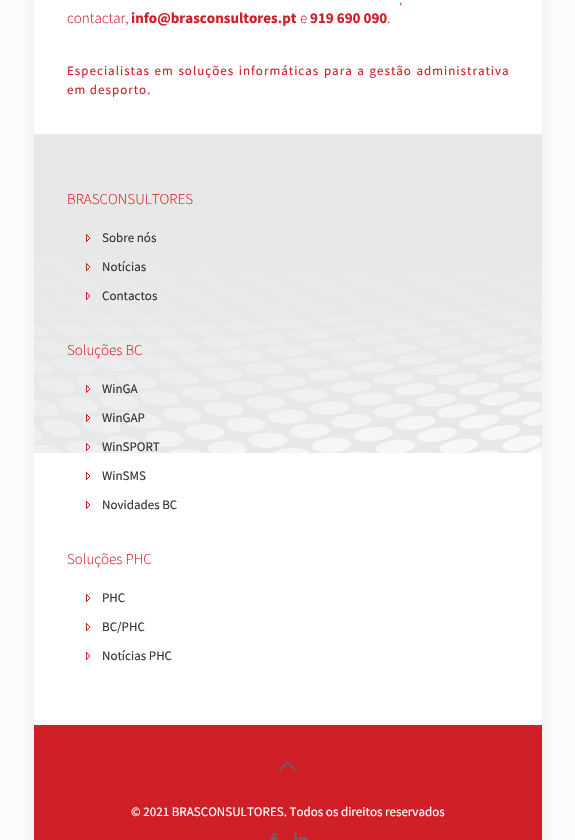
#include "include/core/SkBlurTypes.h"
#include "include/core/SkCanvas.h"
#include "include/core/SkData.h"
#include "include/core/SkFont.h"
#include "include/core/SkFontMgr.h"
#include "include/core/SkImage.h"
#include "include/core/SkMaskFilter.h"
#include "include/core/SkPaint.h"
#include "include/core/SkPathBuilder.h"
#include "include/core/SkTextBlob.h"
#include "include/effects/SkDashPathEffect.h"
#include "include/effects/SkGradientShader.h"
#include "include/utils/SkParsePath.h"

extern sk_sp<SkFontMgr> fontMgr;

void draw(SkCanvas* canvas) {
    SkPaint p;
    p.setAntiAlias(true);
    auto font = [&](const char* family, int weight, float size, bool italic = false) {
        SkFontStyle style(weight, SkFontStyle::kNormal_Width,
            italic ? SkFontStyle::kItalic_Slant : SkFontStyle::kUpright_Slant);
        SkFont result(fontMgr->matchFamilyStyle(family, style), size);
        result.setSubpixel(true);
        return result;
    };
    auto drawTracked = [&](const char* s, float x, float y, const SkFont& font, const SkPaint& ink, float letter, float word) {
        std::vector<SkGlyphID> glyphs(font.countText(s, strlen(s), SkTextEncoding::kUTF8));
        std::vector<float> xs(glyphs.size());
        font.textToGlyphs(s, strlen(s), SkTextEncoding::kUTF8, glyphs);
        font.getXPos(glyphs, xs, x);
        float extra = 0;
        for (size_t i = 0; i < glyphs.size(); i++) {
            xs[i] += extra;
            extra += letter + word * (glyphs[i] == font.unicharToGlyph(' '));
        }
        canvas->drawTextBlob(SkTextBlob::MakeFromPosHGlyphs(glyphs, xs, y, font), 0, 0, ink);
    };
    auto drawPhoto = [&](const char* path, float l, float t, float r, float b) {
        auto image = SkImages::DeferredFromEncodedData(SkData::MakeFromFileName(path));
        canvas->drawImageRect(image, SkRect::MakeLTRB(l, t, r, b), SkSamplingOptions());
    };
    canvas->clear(0xFFFCFCFC);
    p.setColor(0x0F000000);
    p.setMaskFilter(SkMaskFilter::MakeBlur(kNormal_SkBlurStyle, 7.5f));
    canvas->drawRect(SkRect::MakeLTRB(34, -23, 542, 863), p);
    p.setMaskFilter(nullptr);
    p.setColor(0xFFFFFFFF);
    canvas->drawRect(SkRect::MakeLTRB(34, 0, 542, 725), p);
    auto font1 = font("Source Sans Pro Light", 300, 15);
    p.setColor(0xFFCF2027);
    canvas->drawString(",", 399, 4, font1, p);
    canvas->drawString("contactar,", 67, 23, font1, p);
    auto font2 = font("Source Sans Pro", 700, 15);
    canvas->drawString("info@brasconsultores.pt", 131, 23, font2, p);
    canvas->drawString("e", 300, 23, font1, p);
    canvas->drawString("919 690 090", 310, 23, font2, p);
    canvas->drawString(".", 387, 23, font1, p);
    auto font3 = font("Source Sans Pro", 400, 13);
    drawTracked("Especialistas em soluções informáticas para a gestão administrativa", 67, 75, font3, p, 1, 1);
    drawTracked("em desporto.", 67, 94, font3, p, 1, 0);
    drawPhoto("media/1.png", 34, 134, 542, 453);
    p.setColor(0xFFD62027);
    canvas->drawString("BRASCONSULTORES", 67, 204, font1, p);
    drawPhoto("media/2.png", 86, 234, 90, 242);
    p.setColor(0xFF333333);
    canvas->drawString("Sobre nós", 102, 242, font3, p);
    drawPhoto("media/3.png", 86, 263, 90, 271);
    canvas->drawString("Notícias", 102, 271, font3, p);
    drawPhoto("media/2.png", 86, 292, 90, 300);
    canvas->drawString("Contactos", 102, 300, font3, p);
    p.setColor(0xFFD62027);
    canvas->drawString("Soluções BC", 67, 355, font1, p);
    drawPhoto("media/4.png", 86, 385, 90, 393);
    p.setColor(0xFF333333);
    canvas->drawString("WinGA", 102, 393, font3, p);
    drawPhoto("media/5.png", 86, 414, 90, 422);
    canvas->drawString("WinGAP", 102, 422, font3, p);
    drawPhoto("media/6.png", 86, 443, 90, 451);
    canvas->drawString("WinSPORT", 102, 451, font3, p);
    drawPhoto("media/7.png", 86, 472, 90, 480);
    canvas->drawString("WinSMS", 102, 480, font3, p);
    drawPhoto("media/7.png", 86, 501, 90, 509);
    canvas->drawString("Novidades BC", 102, 509, font3, p);
    p.setColor(0xFFD62027);
    canvas->drawString("Soluções PHC", 67, 564, font1, p);
    drawPhoto("media/7.png", 86, 594, 90, 602);
    p.setColor(0xFF333333);
    canvas->drawString("PHC", 102, 602, font3, p);
    drawPhoto("media/7.png", 86, 623, 90, 631);
    canvas->drawString("BC/PHC", 102, 631, font3, p);
    drawPhoto("media/7.png", 86, 652, 90, 660);
    canvas->drawString("Notícias PHC", 102, 660, font3, p);
    p.setColor(0xFFCF2027);
    canvas->drawRect(SkRect::MakeLTRB(34, 725, 542, 840), p);
    drawPhoto("media/8.png", 279, 761, 297, 771);
    p.setColor(0xFFFFFFFF);
    canvas->drawString("© 2021 BRASCONSULTORES. Todos os direitos reservados", 131, 816, font3, p);
    drawPhoto("media/9.png", 270, 833, 278, 840);
    drawPhoto("media/10.png", 294, 833, 308, 840);
}
